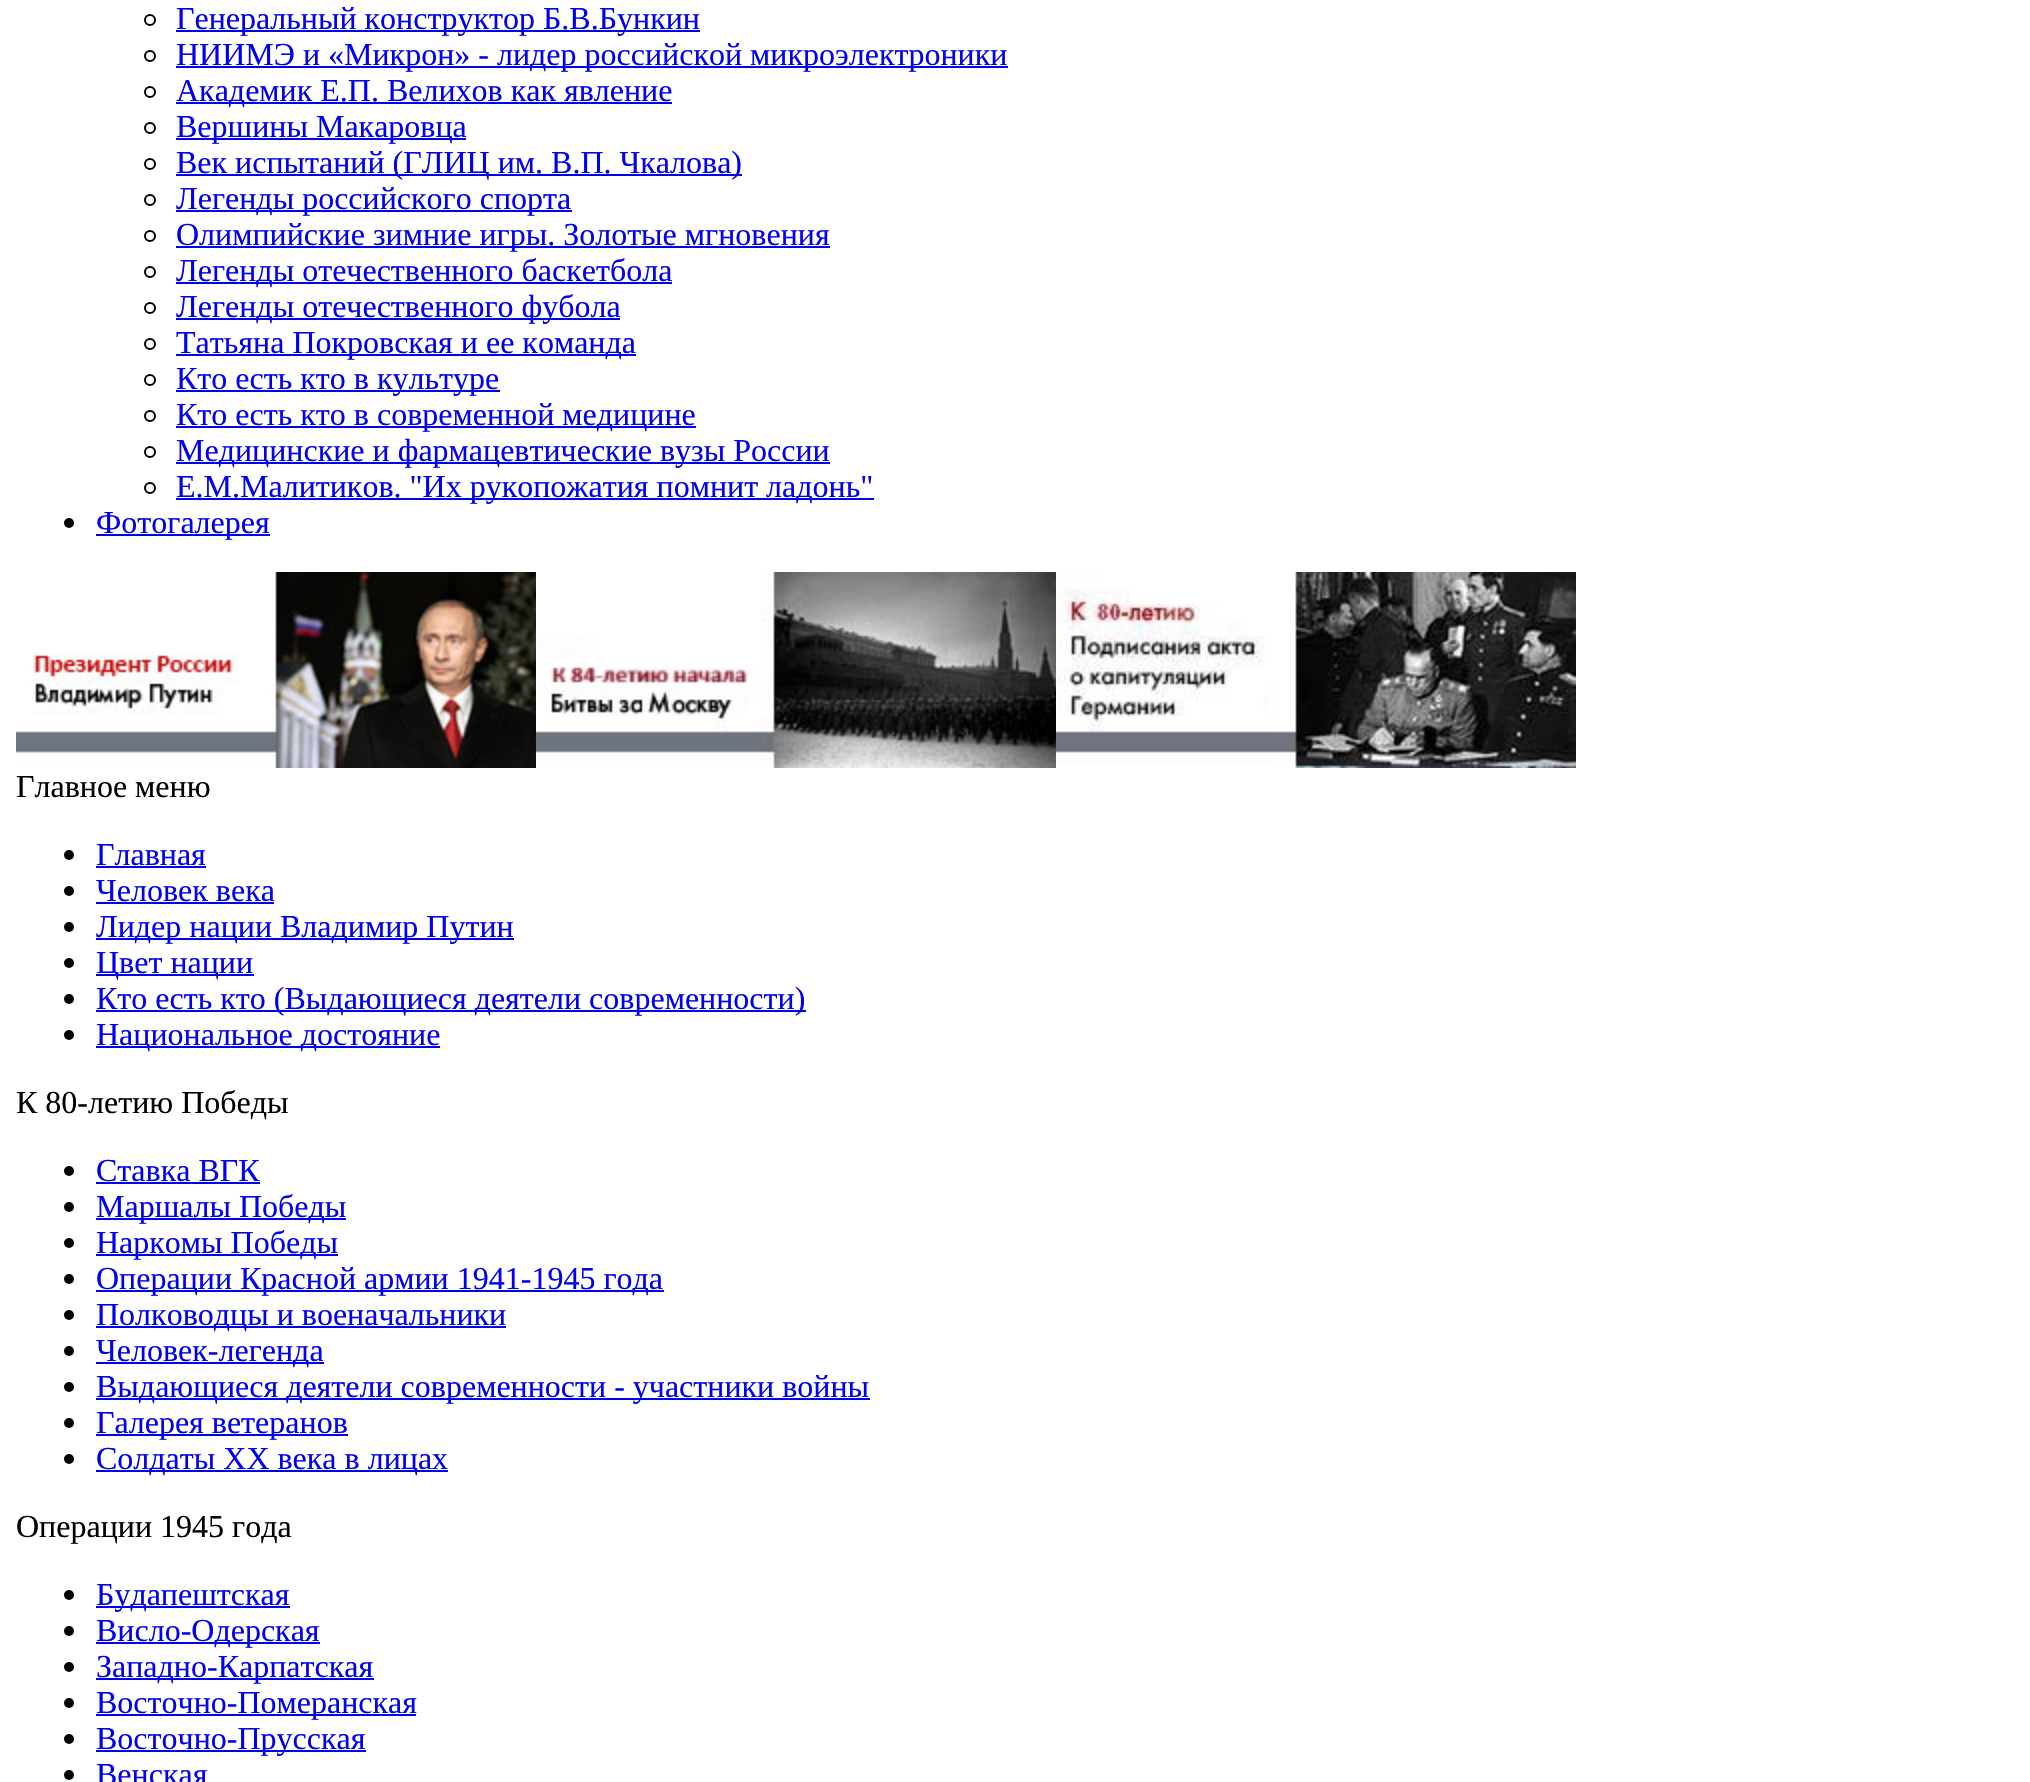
#include "include/core/SkBlurTypes.h"
#include "include/core/SkCanvas.h"
#include "include/core/SkData.h"
#include "include/core/SkFont.h"
#include "include/core/SkFontMgr.h"
#include "include/core/SkImage.h"
#include "include/core/SkMaskFilter.h"
#include "include/core/SkPaint.h"
#include "include/core/SkPathBuilder.h"
#include "include/core/SkTextBlob.h"
#include "include/effects/SkDashPathEffect.h"
#include "include/effects/SkGradientShader.h"
#include "include/utils/SkParsePath.h"

extern sk_sp<SkFontMgr> fontMgr;

void draw(SkCanvas* canvas) {
    SkPaint p;
    p.setAntiAlias(true);
    auto font = [&](const char* family, int weight, float size, bool italic = false) {
        SkFontStyle style(weight, SkFontStyle::kNormal_Width,
            italic ? SkFontStyle::kItalic_Slant : SkFontStyle::kUpright_Slant);
        SkFont result(fontMgr->matchFamilyStyle(family, style), size);
        result.setSubpixel(true);
        return result;
    };
    auto drawPhoto = [&](const char* path, float l, float t, float r, float b) {
        auto image = SkImages::DeferredFromEncodedData(SkData::MakeFromFileName(path));
        canvas->drawImageRect(image, SkRect::MakeLTRB(l, t, r, b), SkSamplingOptions());
    };
    canvas->clear(0xFFFFFFFF);
    p.setStyle(SkPaint::kStroke_Style);
    p.setStrokeWidth(2);
    p.setColor(0xFF000000);
    canvas->drawCircle(150, 20, 5, p);
    p.setStyle(SkPaint::kFill_Style);
    p.setColor(0xFF0000EE);
    canvas->drawRect(SkRect::MakeLTRB(176, 30, 700, 32), p);
    auto font1 = font("Liberation Serif", 400, 32);
    canvas->drawString("Генеральный конструктор Б.В.Бункин", 176, 29, font1, p);
    p.setStyle(SkPaint::kStroke_Style);
    p.setColor(0xFF000000);
    canvas->drawCircle(150, 56, 5, p);
    p.setStyle(SkPaint::kFill_Style);
    p.setColor(0xFF0000EE);
    canvas->drawRect(SkRect::MakeLTRB(176, 66, 1008, 68), p);
    canvas->drawString("НИИМЭ и «Микрон» - лидер российской микроэлектроники", 176, 65, font1, p);
    p.setStyle(SkPaint::kStroke_Style);
    p.setColor(0xFF000000);
    canvas->drawCircle(150, 92, 5, p);
    p.setStyle(SkPaint::kFill_Style);
    p.setColor(0xFF0000EE);
    canvas->drawRect(SkRect::MakeLTRB(176, 102, 672, 104), p);
    canvas->drawString("Академик Е.П. Велихов как явление", 176, 101, font1, p);
    p.setStyle(SkPaint::kStroke_Style);
    p.setColor(0xFF000000);
    canvas->drawCircle(150, 128, 5, p);
    p.setStyle(SkPaint::kFill_Style);
    p.setColor(0xFF0000EE);
    canvas->drawRect(SkRect::MakeLTRB(176, 138, 466, 140), p);
    canvas->drawString("Вершины Макаровца", 176, 137, font1, p);
    p.setStyle(SkPaint::kStroke_Style);
    p.setColor(0xFF000000);
    canvas->drawCircle(150, 164, 5, p);
    p.setStyle(SkPaint::kFill_Style);
    p.setColor(0xFF0000EE);
    canvas->drawRect(SkRect::MakeLTRB(176, 174, 742, 176), p);
    canvas->drawString("Век испытаний (ГЛИЦ им. В.П. Чкалова)", 176, 173, font1, p);
    p.setStyle(SkPaint::kStroke_Style);
    p.setColor(0xFF000000);
    canvas->drawCircle(150, 200, 5, p);
    p.setStyle(SkPaint::kFill_Style);
    p.setColor(0xFF0000EE);
    canvas->drawRect(SkRect::MakeLTRB(176, 210, 572, 212), p);
    canvas->drawString("Легенды российского спорта", 176, 209, font1, p);
    p.setStyle(SkPaint::kStroke_Style);
    p.setColor(0xFF000000);
    canvas->drawCircle(150, 236, 5, p);
    p.setStyle(SkPaint::kFill_Style);
    p.setColor(0xFF0000EE);
    canvas->drawRect(SkRect::MakeLTRB(176, 246, 830, 248), p);
    canvas->drawString("Олимпийские зимние игры. Золотые мгновения", 176, 245, font1, p);
    p.setStyle(SkPaint::kStroke_Style);
    p.setColor(0xFF000000);
    canvas->drawCircle(150, 272, 5, p);
    p.setStyle(SkPaint::kFill_Style);
    p.setColor(0xFF0000EE);
    canvas->drawRect(SkRect::MakeLTRB(176, 282, 672, 284), p);
    canvas->drawString("Легенды отечественного баскетбола", 176, 281, font1, p);
    p.setStyle(SkPaint::kStroke_Style);
    p.setColor(0xFF000000);
    canvas->drawCircle(150, 308, 5, p);
    p.setStyle(SkPaint::kFill_Style);
    p.setColor(0xFF0000EE);
    canvas->drawRect(SkRect::MakeLTRB(176, 318, 620, 320), p);
    canvas->drawString("Легенды отечественного фубола", 176, 317, font1, p);
    p.setStyle(SkPaint::kStroke_Style);
    p.setColor(0xFF000000);
    canvas->drawCircle(150, 344, 5, p);
    p.setStyle(SkPaint::kFill_Style);
    p.setColor(0xFF0000EE);
    canvas->drawRect(SkRect::MakeLTRB(176, 354, 636, 356), p);
    canvas->drawString("Татьяна Покровская и ее команда", 176, 353, font1, p);
    p.setStyle(SkPaint::kStroke_Style);
    p.setColor(0xFF000000);
    canvas->drawCircle(150, 380, 5, p);
    p.setStyle(SkPaint::kFill_Style);
    p.setColor(0xFF0000EE);
    canvas->drawRect(SkRect::MakeLTRB(176, 390, 500, 392), p);
    canvas->drawString("Кто есть кто в культуре", 176, 389, font1, p);
    p.setStyle(SkPaint::kStroke_Style);
    p.setColor(0xFF000000);
    canvas->drawCircle(150, 416, 5, p);
    p.setStyle(SkPaint::kFill_Style);
    p.setColor(0xFF0000EE);
    canvas->drawRect(SkRect::MakeLTRB(176, 426, 696, 428), p);
    canvas->drawString("Кто есть кто в современной медицине", 176, 425, font1, p);
    p.setStyle(SkPaint::kStroke_Style);
    p.setColor(0xFF000000);
    canvas->drawCircle(150, 452, 5, p);
    p.setStyle(SkPaint::kFill_Style);
    p.setColor(0xFF0000EE);
    canvas->drawRect(SkRect::MakeLTRB(176, 462, 830, 464), p);
    canvas->drawString("Медицинские и фармацевтические вузы России", 176, 461, font1, p);
    p.setStyle(SkPaint::kStroke_Style);
    p.setColor(0xFF000000);
    canvas->drawCircle(150, 488, 5, p);
    p.setStyle(SkPaint::kFill_Style);
    p.setColor(0xFF0000EE);
    canvas->drawRect(SkRect::MakeLTRB(176, 498, 874, 500), p);
    canvas->drawString("Е.М.Малитиков. \"Их рукопожатия помнит ладонь\"", 176, 497, font1, p);
    p.setColor(0xFF000000);
    canvas->drawCircle(69, 523, 5, p);
    p.setColor(0xFF0000EE);
    canvas->drawRect(SkRect::MakeLTRB(96, 534, 270, 536), p);
    canvas->drawString("Фотогалерея", 96, 533, font1, p);
    drawPhoto("media/1.png", 16, 572, 536, 768);
    drawPhoto("media/2.png", 536, 572, 1056, 768);
    drawPhoto("media/3.png", 1056, 572, 1576, 768);
    p.setColor(0xFF000000);
    canvas->drawString("Главное меню", 16, 797, font1, p);
    canvas->drawCircle(69, 855, 5, p);
    p.setColor(0xFF0000EE);
    canvas->drawString("Главная", 96, 865, font1, p);
    canvas->drawRect(SkRect::MakeLTRB(96, 866, 206, 868), p);
    p.setColor(0xFF000000);
    canvas->drawCircle(69, 891, 5, p);
    p.setColor(0xFF0000EE);
    canvas->drawString("Человек века", 96, 901, font1, p);
    canvas->drawRect(SkRect::MakeLTRB(96, 902, 274, 904), p);
    p.setColor(0xFF000000);
    canvas->drawCircle(69, 927, 5, p);
    p.setColor(0xFF0000EE);
    canvas->drawRect(SkRect::MakeLTRB(96, 938, 514, 940), p);
    canvas->drawString("Лидер нации Владимир Путин", 96, 937, font1, p);
    p.setColor(0xFF000000);
    canvas->drawCircle(69, 963, 5, p);
    p.setColor(0xFF0000EE);
    canvas->drawRect(SkRect::MakeLTRB(96, 974, 254, 976), p);
    canvas->drawString("Цвет нации", 96, 973, font1, p);
    p.setColor(0xFF000000);
    canvas->drawCircle(69, 999, 5, p);
    p.setColor(0xFF0000EE);
    canvas->drawRect(SkRect::MakeLTRB(96, 1010, 806, 1012), p);
    canvas->drawString("Кто есть кто (Выдающиеся деятели современности)", 96, 1009, font1, p);
    p.setColor(0xFF000000);
    canvas->drawCircle(69, 1035, 5, p);
    p.setColor(0xFF0000EE);
    canvas->drawRect(SkRect::MakeLTRB(96, 1046, 440, 1048), p);
    canvas->drawString("Национальное достояние", 96, 1045, font1, p);
    p.setColor(0xFF000000);
    canvas->drawString("К 80-летию Победы", 16, 1113, font1, p);
    canvas->drawCircle(69, 1171, 5, p);
    p.setColor(0xFF0000EE);
    canvas->drawString("Ставка ВГК", 96, 1181, font1, p);
    canvas->drawRect(SkRect::MakeLTRB(96, 1182, 260, 1184), p);
    p.setColor(0xFF000000);
    canvas->drawCircle(69, 1207, 5, p);
    p.setColor(0xFF0000EE);
    canvas->drawRect(SkRect::MakeLTRB(96, 1218, 346, 1220), p);
    canvas->drawString("Маршалы Победы", 96, 1217, font1, p);
    p.setColor(0xFF000000);
    canvas->drawCircle(69, 1243, 5, p);
    p.setColor(0xFF0000EE);
    canvas->drawRect(SkRect::MakeLTRB(96, 1254, 338, 1256), p);
    canvas->drawString("Наркомы Победы", 96, 1253, font1, p);
    p.setColor(0xFF000000);
    canvas->drawCircle(69, 1279, 5, p);
    p.setColor(0xFF0000EE);
    canvas->drawRect(SkRect::MakeLTRB(96, 1290, 664, 1292), p);
    canvas->drawString("Операции Красной армии 1941-1945 года", 96, 1289, font1, p);
    p.setColor(0xFF000000);
    canvas->drawCircle(69, 1315, 5, p);
    p.setColor(0xFF0000EE);
    canvas->drawRect(SkRect::MakeLTRB(96, 1326, 506, 1328), p);
    canvas->drawString("Полководцы и военачальники", 96, 1325, font1, p);
    p.setColor(0xFF000000);
    canvas->drawCircle(69, 1351, 5, p);
    p.setColor(0xFF0000EE);
    canvas->drawRect(SkRect::MakeLTRB(96, 1362, 324, 1364), p);
    canvas->drawString("Человек-легенда", 96, 1361, font1, p);
    p.setColor(0xFF000000);
    canvas->drawCircle(69, 1387, 5, p);
    p.setColor(0xFF0000EE);
    canvas->drawRect(SkRect::MakeLTRB(96, 1398, 870, 1400), p);
    canvas->drawString("Выдающиеся деятели современности - участники войны", 96, 1397, font1, p);
    p.setColor(0xFF000000);
    canvas->drawCircle(69, 1423, 5, p);
    p.setColor(0xFF0000EE);
    canvas->drawRect(SkRect::MakeLTRB(96, 1434, 348, 1436), p);
    canvas->drawString("Галерея ветеранов", 96, 1433, font1, p);
    p.setColor(0xFF000000);
    canvas->drawCircle(69, 1459, 5, p);
    p.setColor(0xFF0000EE);
    canvas->drawRect(SkRect::MakeLTRB(96, 1470, 448, 1472), p);
    canvas->drawString("Солдаты XX века в лицах", 96, 1469, font1, p);
    p.setColor(0xFF000000);
    canvas->drawString("Операции 1945 года", 16, 1537, font1, p);
    canvas->drawCircle(69, 1595, 5, p);
    p.setColor(0xFF0000EE);
    canvas->drawRect(SkRect::MakeLTRB(96, 1606, 290, 1608), p);
    canvas->drawString("Будапештская", 96, 1605, font1, p);
    p.setColor(0xFF000000);
    canvas->drawCircle(69, 1631, 5, p);
    p.setColor(0xFF0000EE);
    canvas->drawRect(SkRect::MakeLTRB(96, 1642, 320, 1644), p);
    canvas->drawString("Висло-Одерская", 96, 1641, font1, p);
    p.setColor(0xFF000000);
    canvas->drawCircle(69, 1667, 5, p);
    p.setColor(0xFF0000EE);
    canvas->drawRect(SkRect::MakeLTRB(96, 1678, 374, 1680), p);
    canvas->drawString("Западно-Карпатская", 96, 1677, font1, p);
    p.setColor(0xFF000000);
    canvas->drawCircle(69, 1703, 5, p);
    p.setColor(0xFF0000EE);
    canvas->drawRect(SkRect::MakeLTRB(96, 1714, 416, 1716), p);
    canvas->drawString("Восточно-Померанская", 96, 1713, font1, p);
    p.setColor(0xFF000000);
    canvas->drawCircle(69, 1739, 5, p);
    p.setColor(0xFF0000EE);
    canvas->drawRect(SkRect::MakeLTRB(96, 1750, 366, 1752), p);
    canvas->drawString("Восточно-Прусская", 96, 1749, font1, p);
    p.setColor(0xFF000000);
    canvas->drawCircle(69, 1775, 5, p);
    p.setColor(0xFF0000EE);
    canvas->drawString("Венская", 96, 1785, font1, p);
}
